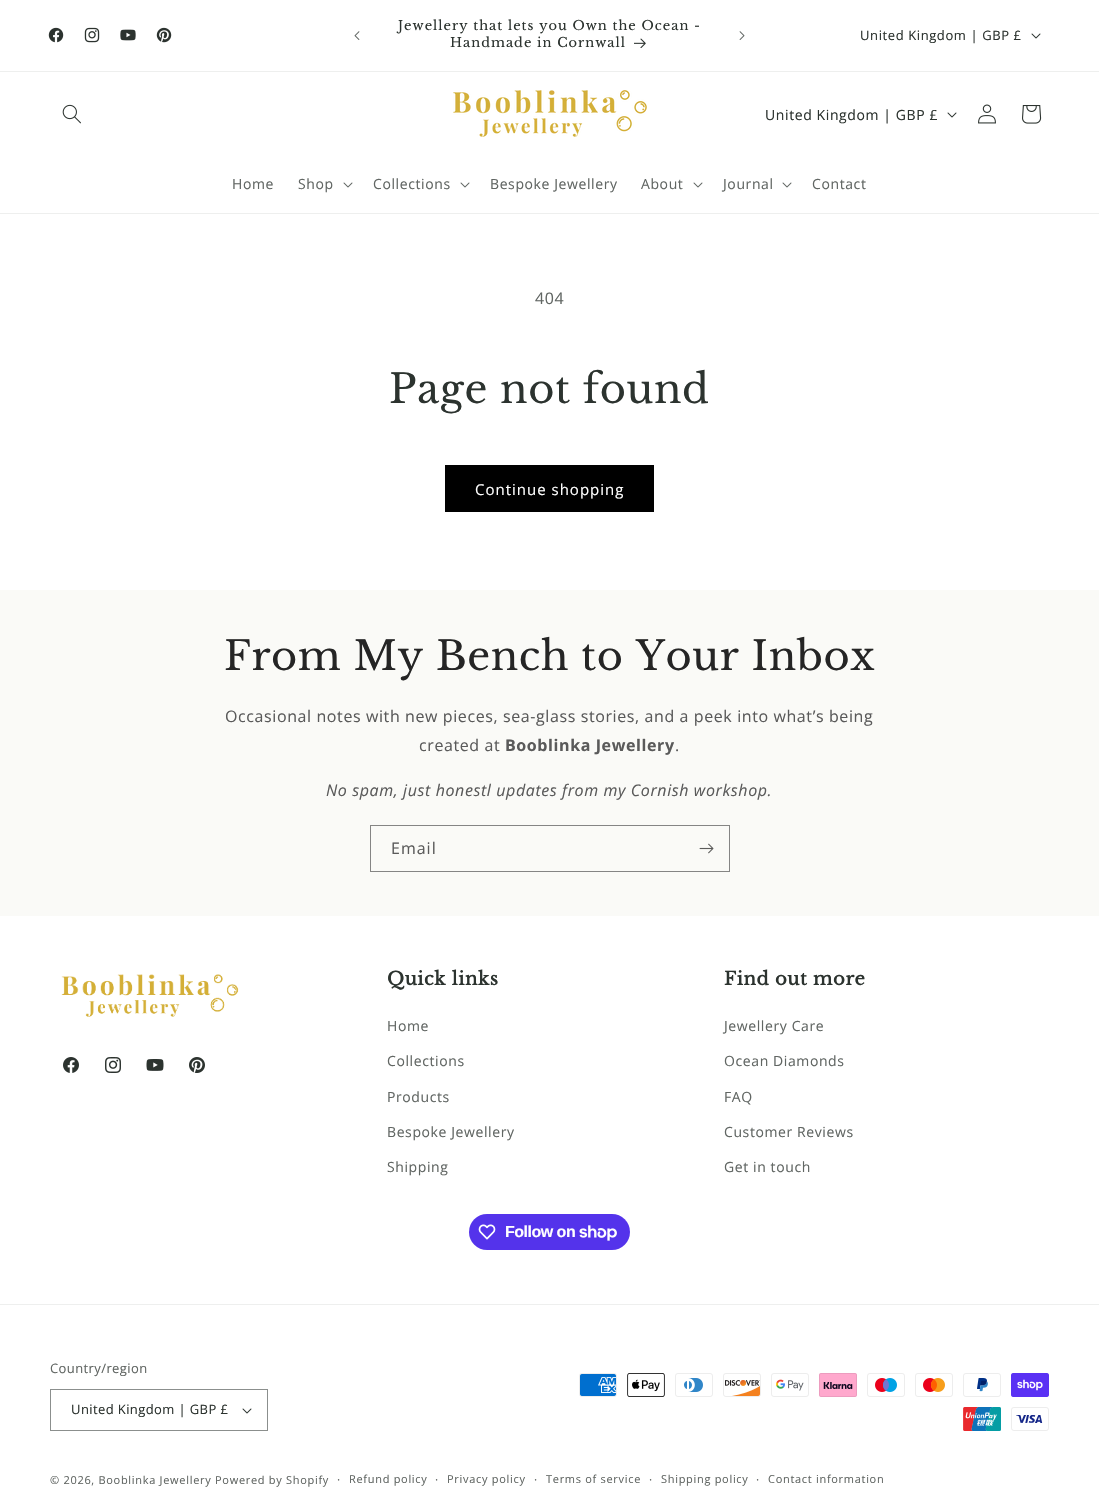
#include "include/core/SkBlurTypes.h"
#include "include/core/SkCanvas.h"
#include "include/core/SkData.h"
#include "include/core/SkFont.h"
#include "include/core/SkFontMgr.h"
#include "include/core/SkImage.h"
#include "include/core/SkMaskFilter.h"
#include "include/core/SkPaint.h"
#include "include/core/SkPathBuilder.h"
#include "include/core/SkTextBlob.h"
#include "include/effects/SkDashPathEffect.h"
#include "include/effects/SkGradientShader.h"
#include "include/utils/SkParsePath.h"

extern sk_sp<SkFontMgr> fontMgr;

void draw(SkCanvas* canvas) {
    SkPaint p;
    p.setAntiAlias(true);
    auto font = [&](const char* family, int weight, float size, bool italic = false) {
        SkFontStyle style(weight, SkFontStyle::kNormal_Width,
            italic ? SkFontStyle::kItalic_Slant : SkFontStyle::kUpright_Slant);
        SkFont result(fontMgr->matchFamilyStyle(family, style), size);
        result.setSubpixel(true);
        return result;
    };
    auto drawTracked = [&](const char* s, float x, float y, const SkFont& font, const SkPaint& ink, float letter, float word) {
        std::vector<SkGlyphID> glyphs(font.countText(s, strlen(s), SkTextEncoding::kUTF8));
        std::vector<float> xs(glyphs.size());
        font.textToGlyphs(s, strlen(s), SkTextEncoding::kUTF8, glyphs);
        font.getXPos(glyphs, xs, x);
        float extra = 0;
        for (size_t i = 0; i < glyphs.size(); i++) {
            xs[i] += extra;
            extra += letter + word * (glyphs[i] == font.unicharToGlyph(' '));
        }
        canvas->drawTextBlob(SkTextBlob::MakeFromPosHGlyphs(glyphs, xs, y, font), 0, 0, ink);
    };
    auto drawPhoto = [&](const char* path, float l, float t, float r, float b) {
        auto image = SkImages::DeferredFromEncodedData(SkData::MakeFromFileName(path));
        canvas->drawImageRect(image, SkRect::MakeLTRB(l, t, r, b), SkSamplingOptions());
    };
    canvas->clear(0xFFFFFFFF);
    p.setColor(0xFFEEEFEE);
    canvas->drawRect(SkRect::MakeLTRB(0, 71, 1099, 72), p);
    drawPhoto("media/1.png", 48, 27, 64, 43);
    drawPhoto("media/2.png", 84, 27, 100, 43);
    drawPhoto("media/3.png", 120, 29, 136, 41);
    drawPhoto("media/4.png", 156, 27, 172, 43);
    drawPhoto("media/5.png", 354, 31, 360, 40);
    auto font1 = font("Libre Baskerville", 400, 13);
    p.setColor(0xFF2C332F);
    drawTracked("Jewellery that lets you Own the Ocean -", 398, 30, font1, p, 1, 0);
    drawTracked("Handmade in Cornwall", 450, 47, font1, p, 1, 0);
    drawPhoto("media/6.png", 634, 38, 646, 48);
    drawPhoto("media/7.png", 739, 31, 745, 40);
    auto font2 = font("Open Sans", 400, 13);
    drawTracked("United Kingdom | GBP £", 860, 40, font2, p, 0.6f, 0);
    drawPhoto("media/8.png", 1031, 33, 1041, 39);
    p.setColor(0xFFEEEFEE);
    canvas->drawRect(SkRect::MakeLTRB(0, 213, 1099, 214), p);
    drawPhoto("media/9.png", 62, 104, 81, 124);
    drawPhoto("media/10.png", 453, 90, 647, 137);
    auto font3 = font("Open Sans", 400, 14);
    p.setColor(0xFF2C332F);
    drawTracked("United Kingdom | GBP £", 765, 120, font3, p, 0.6f, 0);
    drawPhoto("media/8.png", 947, 112, 957, 118);
    drawPhoto("media/11.png", 978, 104, 996, 124);
    drawPhoto("media/12.png", 1022, 105, 1042, 124);
    p.setColor(0xFF616663);
    drawTracked("Home", 232, 189, font3, p, 0.6f, 0);
    drawTracked("Shop", 298, 189, font3, p, 0.6f, 0);
    drawPhoto("media/13.png", 343, 182, 353, 188);
    drawTracked("Collections", 373, 189, font3, p, 0.6f, 0);
    drawPhoto("media/13.png", 460, 182, 470, 188);
    drawTracked("Bespoke Jewellery", 490, 189, font3, p, 0.6f, 0);
    drawTracked("About", 641, 189, font3, p, 0.6f, 0);
    drawPhoto("media/13.png", 693, 182, 703, 188);
    drawTracked("Journal", 723, 189, font3, p, 0.6f, 0);
    drawPhoto("media/13.png", 782, 182, 792, 188);
    drawTracked("Contact", 812, 189, font3, p, 0.6f, 0);
    auto font4 = font("Open Sans", 400, 16);
    drawTracked("404", 535, 304, font4, p, 0.6f, 0);
    auto font5 = font("Libre Baskerville", 400, 40);
    p.setColor(0xFF2C332F);
    drawTracked("Page not found", 389, 403, font5, p, 0.6f, 0);
    p.setColor(0xFF000000);
    canvas->drawRect(SkRect::MakeLTRB(445, 465, 654, 512), p);
    auto font6 = font("Open Sans", 400, 15);
    p.setColor(0xFFFFFFFF);
    drawTracked("Continue shopping", 475, 495, font6, p, 1, 0);
    p.setColor(0xFFFAFAF7);
    canvas->drawRect(SkRect::MakeLTRB(0, 590, 1099, 916), p);
    p.setColor(0xFF252525);
    drawTracked("From My Bench to Your Inbox", 224, 670, font5, p, 0.6f, 0);
    p.setColor(0xFF5A5A5A);
    drawTracked("Occasional notes with new pieces, sea-glass stories, and a peek into what’s being", 225, 722, font4, p, 0.6f, 0);
    drawTracked("created at", 419, 751, font4, p, 0.6f, 0);
    auto font7 = font("Open Sans", 700, 16);
    drawTracked("Booblinka Jewellery", 505, 751, font7, p, 0.6f, 0);
    drawTracked(".", 675, 751, font4, p, 0.6f, 0);
    auto font8 = font("Open Sans", 400, 16, true);
    drawTracked("No spam, just honestl updates from my Cornish workshop.", 326, 796, font8, p, 0.6f, 0);
    p.setStyle(SkPaint::kStroke_Style);
    p.setStrokeWidth(1);
    p.setColor(0xFF858584);
    canvas->drawRect(SkRect::MakeLTRB(370.5f, 825.5f, 729.5f, 871.5f), p);
    p.setStyle(SkPaint::kFill_Style);
    p.setColor(0xFF5A5A5A);
    drawTracked("Email", 391, 854, font4, p, 1, 0);
    drawPhoto("media/14.png", 699, 843, 714, 854);
    drawPhoto("media/15.png", 61, 974, 239, 1017);
    drawPhoto("media/16.png", 63, 1057, 79, 1073);
    drawPhoto("media/17.png", 105, 1057, 121, 1073);
    drawPhoto("media/18.png", 146, 1059, 164, 1071);
    drawPhoto("media/19.png", 189, 1057, 205, 1073);
    auto font9 = font("Libre Baskerville", 700, 18);
    p.setColor(0xFF2C332F);
    drawTracked("Quick links", 387, 985, font9, p, 0.6f, 0);
    p.setColor(0xFF616663);
    {
        const struct { const char* s; float x, y; } items[] = {
            {"Home", 387, 1031},
            {"Collections", 387, 1066},
            {"Products", 387, 1102},
            {"Bespoke Jewellery", 387, 1137},
            {"Shipping", 387, 1172},
        };
        for (auto [s, x, y] : items) {
            drawTracked(s, x, y, font3, p, 0.6f, 0);
        }
    }
    p.setColor(0xFF2C332F);
    drawTracked("Find out more", 724, 985, font9, p, 0.6f, 0);
    p.setColor(0xFF616663);
    {
        const struct { const char* s; float x, y; } items[] = {
            {"Jewellery Care", 724, 1031},
            {"Ocean Diamonds", 724, 1066},
            {"FAQ", 724, 1102},
            {"Customer Reviews", 724, 1137},
            {"Get in touch", 724, 1172},
        };
        for (auto [s, x, y] : items) {
            drawTracked(s, x, y, font3, p, 0.6f, 0);
        }
    }
    p.setColor(0xFF5433EB);
    canvas->drawRoundRect(SkRect::MakeLTRB(469, 1214, 630, 1250), 18, 18, p);
    drawPhoto("media/20.png", 478, 1224, 496, 1240);
    auto font10 = font("Liberation Sans", 700, 16);
    p.setColor(0xFFFFFFFF);
    drawTracked("Follow on", 505, 1237, font10, p, -0.5f, 0);
    drawPhoto("media/21.png", 579, 1225, 617, 1241);
    p.setColor(0xFFEEEFEE);
    canvas->drawRect(SkRect::MakeLTRB(0, 1304, 1099, 1305), p);
    p.setColor(0xFF616663);
    drawTracked("Country/region", 50, 1373, font2, p, 0.4f, 0);
    drawPhoto("media/8.png", 242, 1408, 252, 1414);
    p.setStyle(SkPaint::kStroke_Style);
    p.setColor(0xFF8B8F8D);
    canvas->drawRect(SkRect::MakeLTRB(50.5f, 1389.5f, 267.5f, 1430.5f), p);
    p.setStyle(SkPaint::kFill_Style);
    p.setColor(0xFF2C332F);
    drawTracked("United Kingdom | GBP £", 71, 1414, font2, p, 0.4f, 0);
    drawPhoto("media/22.png", 579, 1373, 617, 1397);
    drawPhoto("media/23.png", 627, 1373, 665, 1397);
    drawPhoto("media/24.png", 675, 1373, 713, 1397);
    drawPhoto("media/25.png", 723, 1373, 761, 1397);
    drawPhoto("media/26.png", 771, 1373, 809, 1397);
    drawPhoto("media/27.png", 819, 1373, 857, 1397);
    drawPhoto("media/28.png", 867, 1373, 905, 1397);
    drawPhoto("media/29.png", 915, 1373, 953, 1397);
    drawPhoto("media/30.png", 963, 1373, 1001, 1397);
    drawPhoto("media/31.png", 1011, 1373, 1049, 1397);
    drawPhoto("media/32.png", 963, 1407, 1001, 1431);
    drawPhoto("media/33.png", 1011, 1407, 1049, 1431);
    auto font11 = font("Open Sans", 400, 11);
    p.setColor(0xFF616663);
    drawTracked("© 2026, Booblinka Jewellery Powered by Shopify", 50, 1484, font11, p, 0.7f, 0);
    auto font12 = font("Open Sans", 400, 12);
    drawTracked("·", 337, 1484, font12, p, 0.7f, 0);
    drawTracked("Refund policy", 349, 1483, font11, p, 0.7f, 0);
    drawTracked("·", 435, 1484, font12, p, 0.7f, 0);
    drawTracked("Privacy policy", 447, 1483, font11, p, 0.7f, 0);
    drawTracked("·", 534, 1484, font12, p, 0.7f, 0);
    drawTracked("Terms of service", 546, 1483, font11, p, 0.7f, 0);
    drawTracked("·", 649, 1484, font12, p, 0.7f, 0);
    drawTracked("Shipping policy", 661, 1483, font11, p, 0.7f, 0);
    drawTracked("·", 756, 1484, font12, p, 0.7f, 0);
    drawTracked("Contact information", 768, 1483, font11, p, 0.7f, 0);
}
